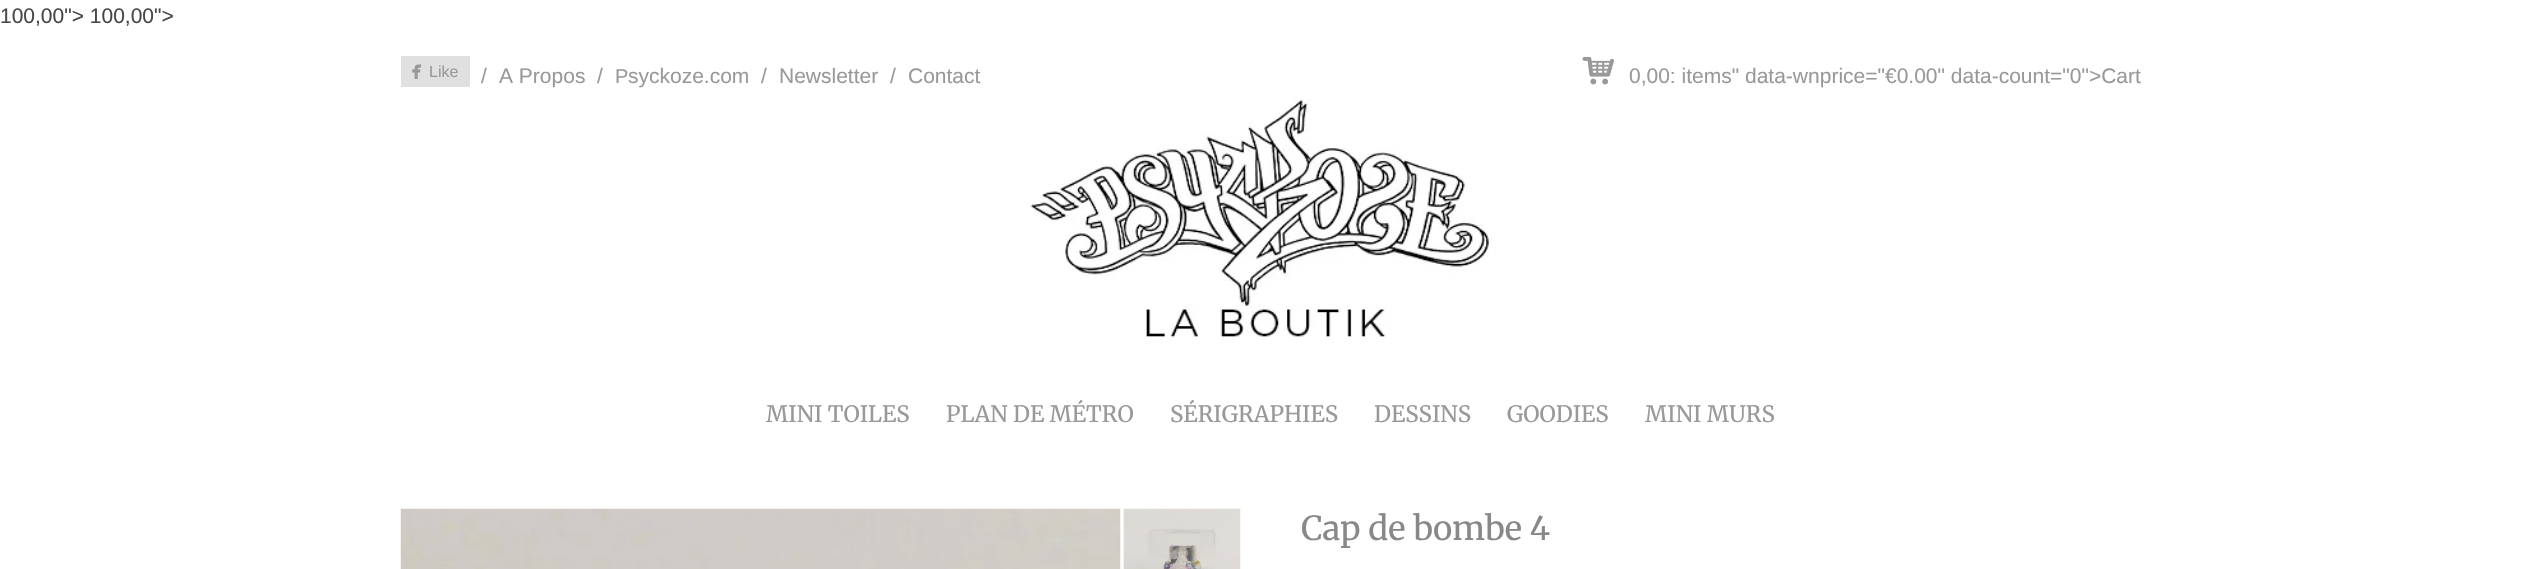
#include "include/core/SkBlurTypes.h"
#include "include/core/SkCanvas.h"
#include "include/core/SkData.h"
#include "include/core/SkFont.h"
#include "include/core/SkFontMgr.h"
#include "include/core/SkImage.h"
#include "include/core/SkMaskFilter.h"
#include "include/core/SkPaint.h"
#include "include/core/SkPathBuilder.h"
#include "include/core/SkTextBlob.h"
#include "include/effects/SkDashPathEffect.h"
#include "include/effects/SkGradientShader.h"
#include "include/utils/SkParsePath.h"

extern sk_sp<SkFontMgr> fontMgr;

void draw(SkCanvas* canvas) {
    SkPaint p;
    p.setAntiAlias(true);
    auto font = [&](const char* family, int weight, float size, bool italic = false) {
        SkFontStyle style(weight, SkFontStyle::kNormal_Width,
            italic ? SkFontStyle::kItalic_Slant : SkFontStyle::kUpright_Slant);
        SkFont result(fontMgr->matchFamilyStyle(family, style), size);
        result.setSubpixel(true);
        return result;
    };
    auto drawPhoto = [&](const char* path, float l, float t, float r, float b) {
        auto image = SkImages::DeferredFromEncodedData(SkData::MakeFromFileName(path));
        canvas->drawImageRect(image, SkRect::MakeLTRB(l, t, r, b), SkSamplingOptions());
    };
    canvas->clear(0xFFFFFFFF);
    auto font1 = font("Liberation Sans", 400, 21);
    p.setColor(0xFF474747);
    canvas->drawString("100,00\"> 100,00\">", 0, 23, font1, p);
    p.setColor(0xFFE0E0E0);
    canvas->drawRect(SkRect::MakeLTRB(401, 56, 470, 87), p);
    drawPhoto("media/1.png", 412, 64, 421, 79);
    auto font2 = font("Liberation Sans", 400, 16);
    p.setColor(0xFF999999);
    canvas->drawString("Like", 429, 77, font2, p);
    {
        const struct { const char* s; float x, y; } items[] = {
            {"/", 481, 83},
            {"A Propos", 499, 83},
            {"/", 597, 83},
        };
        for (auto [s, x, y] : items) {
            canvas->drawString(s, x, y, font1, p);
        }
    }
    auto font3 = font("Liberation Sans", 400, 20);
    canvas->drawString("P", 615, 83, font3, p);
    {
        const struct { const char* s; float x, y; } items[] = {
            {"syckoze.com", 628, 83},
            {"/", 761, 83},
            {"Newsletter", 779, 83},
            {"/", 890, 83},
            {"Contact", 908, 83},
        };
        for (auto [s, x, y] : items) {
            canvas->drawString(s, x, y, font1, p);
        }
    }
    drawPhoto("media/2.png", 1582, 56, 1614, 85);
    canvas->drawString("0,00: items\" data-wnprice=\"€0.00\" data-count=\"0\">Cart", 1629, 83, font1, p);
    drawPhoto("media/3.png", 1030, 98, 1489, 337);
    auto font4 = font("Merriweather", 400, 22.5f);
    {
        const struct { const char* s; float x, y; } items[] = {
            {"MINI TOILES", 766, 422},
            {"PLAN DE MÉTRO", 946, 422},
            {"SÉRIGRAPHIES", 1170, 422},
            {"DESSINS", 1374, 422},
            {"GOODIES", 1507, 422},
            {"MINI MURS", 1645, 422},
        };
        for (auto [s, x, y] : items) {
            canvas->drawString(s, x, y, font4, p);
        }
    }
    drawPhoto("media/4.png", 400, 508, 1121, 569);
    drawPhoto("media/5.png", 1123, 508, 1241, 569);
    auto font5 = font("Merriweather", 400, 33);
    p.setColor(0xFF888888);
    canvas->drawString("Cap de bombe 4", 1301, 540, font5, p);
}
